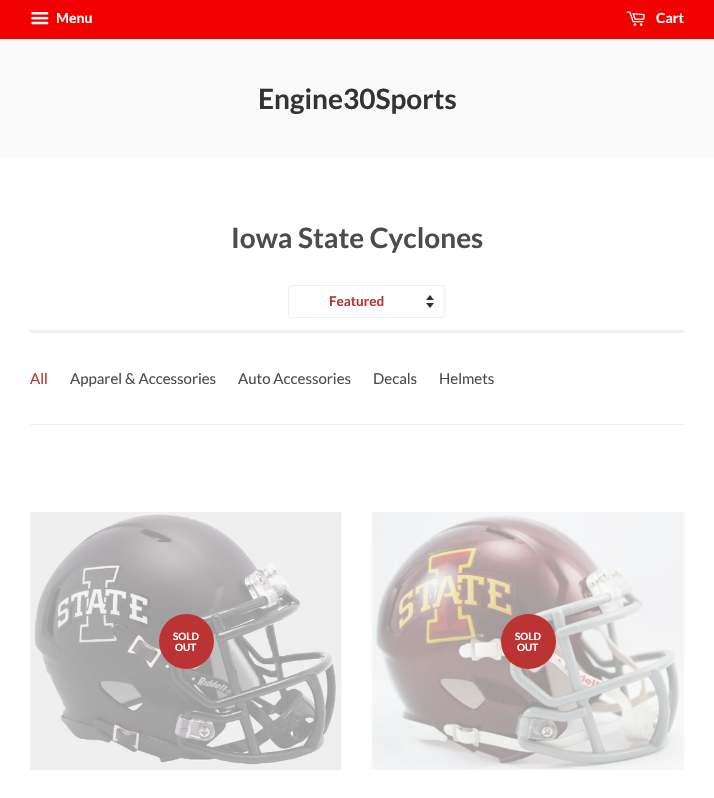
#include "include/core/SkBlurTypes.h"
#include "include/core/SkCanvas.h"
#include "include/core/SkData.h"
#include "include/core/SkFont.h"
#include "include/core/SkFontMgr.h"
#include "include/core/SkImage.h"
#include "include/core/SkMaskFilter.h"
#include "include/core/SkPaint.h"
#include "include/core/SkPathBuilder.h"
#include "include/core/SkTextBlob.h"
#include "include/effects/SkDashPathEffect.h"
#include "include/effects/SkGradientShader.h"
#include "include/utils/SkParsePath.h"

extern sk_sp<SkFontMgr> fontMgr;

void draw(SkCanvas* canvas) {
    SkPaint p;
    p.setAntiAlias(true);
    auto font = [&](const char* family, int weight, float size, bool italic = false) {
        SkFontStyle style(weight, SkFontStyle::kNormal_Width,
            italic ? SkFontStyle::kItalic_Slant : SkFontStyle::kUpright_Slant);
        SkFont result(fontMgr->matchFamilyStyle(family, style), size);
        result.setSubpixel(true);
        return result;
    };
    auto drawPhoto = [&](const char* path, float l, float t, float r, float b) {
        auto image = SkImages::DeferredFromEncodedData(SkData::MakeFromFileName(path));
        canvas->drawImageRect(image, SkRect::MakeLTRB(l, t, r, b), SkSamplingOptions());
    };
    canvas->clear(0xFFFFFFFF);
    p.setColor(0xFFF10000);
    canvas->drawRect(SkRect::MakeLTRB(0, 0, 714, 39), p);
    drawPhoto("media/1.png", 31, 12, 49, 25);
    auto font1 = font("Lato", 700, 14);
    p.setColor(0xFFFFFFFF);
    canvas->drawString("Menu", 56, 23, font1, p);
    drawPhoto("media/2.png", 626, 11, 645, 26);
    canvas->drawString("Cart", 656, 23, font1, p);
    p.setColor(0xFFFAFAFA);
    canvas->drawRect(SkRect::MakeLTRB(0, 39, 714, 158), p);
    auto font2 = font("Lato", 700, 28);
    p.setColor(0xFF333333);
    canvas->drawString("Engine30Sports", 258, 109, font2, p);
    p.setColor(0xFFF0F0F0);
    canvas->drawRect(SkRect::MakeLTRB(30, 330, 684, 333), p);
    p.setColor(0xFF4C4C4C);
    canvas->drawString("Iowa State Cyclones", 231, 248, font2, p);
    drawPhoto("media/3.png", 426, 295, 434, 308);
    p.setStyle(SkPaint::kStroke_Style);
    p.setStrokeWidth(1);
    p.setColor(0xFFF0F0F0);
    canvas->drawRoundRect(SkRect::MakeLTRB(288.5f, 285.5f, 444.5f, 317.5f), 2.5f, 2.5f, p);
    auto font3 = font("Lato", 700, 13.5f);
    p.setStyle(SkPaint::kFill_Style);
    p.setColor(0xFFBC3333);
    canvas->drawString("Featured", 329, 306, font3, p);
    auto font4 = font("Lato", 400, 15);
    canvas->drawString("All", 30, 384, font4, p);
    p.setColor(0xFF4C4C4C);
    {
        const struct { const char* s; float x, y; } items[] = {
            {"Apparel & Accessories", 70, 384},
            {"Auto Accessories", 238, 384},
            {"Decals", 373, 384},
            {"Helmets", 439, 384},
        };
        for (auto [s, x, y] : items) {
            canvas->drawString(s, x, y, font4, p);
        }
    }
    p.setColor(0xFFF0F0F0);
    canvas->drawRect(SkRect::MakeLTRB(30, 424, 684, 425), p);
    drawPhoto("media/4.png", 30, 512, 342, 770);
    p.setColor(0xFFBC3333);
    canvas->drawCircle(186.5f, 641.5f, 27.5f, p);
    auto font5 = font("Lato", 700, 10);
    p.setColor(0xFFFFFFFF);
    canvas->drawString("SOLD", 173, 640, font5, p);
    canvas->drawString("OUT", 175, 651, font5, p);
    drawPhoto("media/5.png", 372, 512, 684, 770);
    p.setColor(0xFFBC3333);
    canvas->drawCircle(528.5f, 641.5f, 27.5f, p);
    p.setColor(0xFFFFFFFF);
    canvas->drawString("SOLD", 515, 640, font5, p);
    canvas->drawString("OUT", 517, 651, font5, p);
}
